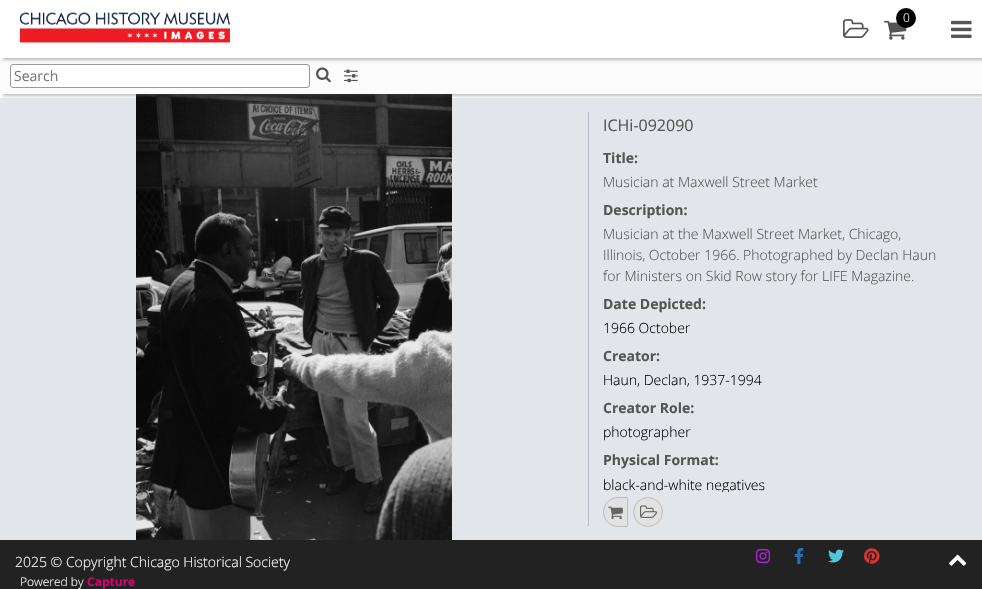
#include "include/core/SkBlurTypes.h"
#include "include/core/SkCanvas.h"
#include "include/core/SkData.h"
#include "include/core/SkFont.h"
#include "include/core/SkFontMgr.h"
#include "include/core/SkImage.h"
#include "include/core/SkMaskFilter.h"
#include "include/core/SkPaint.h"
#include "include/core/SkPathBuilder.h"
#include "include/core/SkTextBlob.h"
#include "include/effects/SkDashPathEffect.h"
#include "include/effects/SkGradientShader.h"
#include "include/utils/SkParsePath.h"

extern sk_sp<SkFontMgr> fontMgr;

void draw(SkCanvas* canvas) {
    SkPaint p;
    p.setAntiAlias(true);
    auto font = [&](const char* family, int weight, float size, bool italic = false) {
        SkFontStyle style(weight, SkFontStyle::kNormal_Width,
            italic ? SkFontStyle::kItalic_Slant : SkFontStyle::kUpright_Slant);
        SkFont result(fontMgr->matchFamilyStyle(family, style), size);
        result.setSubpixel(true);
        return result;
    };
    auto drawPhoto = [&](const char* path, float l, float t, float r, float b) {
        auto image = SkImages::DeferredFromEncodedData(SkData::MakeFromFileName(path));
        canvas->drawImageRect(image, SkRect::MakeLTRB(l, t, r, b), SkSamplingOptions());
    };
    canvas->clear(0xFFFFFFFF);
    p.setColor(0xFFE2E5E9);
    canvas->drawRect(SkRect::MakeLTRB(0, 98, 982, 540), p);
    drawPhoto("media/7.png", 136, 94, 452, 540);
    p.setColor(0x594A4545);
    p.setMaskFilter(SkMaskFilter::MakeBlur(kNormal_SkBlurStyle, 1.5f));
    canvas->drawRect(SkRect::MakeLTRB(3, 60, 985, 96), p);
    p.setMaskFilter(nullptr);
    p.setColor(0xFFFBFBFB);
    canvas->drawRect(SkRect::MakeLTRB(0, 58, 982, 94), p);
    p.setColor(0xFFFFFFFF);
    canvas->drawRoundRect(SkRect::MakeLTRB(10.5f, 64.5f, 309.5f, 87.5f), 2.5f, 2.5f, p);
    p.setStyle(SkPaint::kStroke_Style);
    p.setStrokeWidth(1);
    p.setColor(0xFF999999);
    canvas->drawRoundRect(SkRect::MakeLTRB(10.5f, 64.5f, 309.5f, 87.5f), 2.5f, 2.5f, p);
    p.setStyle(SkPaint::kFill_Style);
    p.setColor(0x594A4545);
    p.setMaskFilter(SkMaskFilter::MakeBlur(kNormal_SkBlurStyle, 1.5f));
    canvas->drawRect(SkRect::MakeLTRB(3, 2, 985, 60), p);
    p.setMaskFilter(nullptr);
    p.setColor(0xFFFFFFFF);
    canvas->drawRect(SkRect::MakeLTRB(0, 0, 982, 58), p);
    drawPhoto("media/1.png", 19, 12, 230, 43);
    drawPhoto("media/2.png", 884, 20, 907, 40);
    p.setColor(0xFF000000);
    canvas->drawCircle(906, 18, 10, p);
    auto font1 = font("Open Sans", 300, 12);
    p.setColor(0xFFFFFFFF);
    canvas->drawString("0", 903, 22, font1, p);
    drawPhoto("media/3.png", 843, 19, 869, 38);
    drawPhoto("media/4.png", 951, 20, 972, 38);
    auto font2 = font("Open Sans", 400, 14);
    p.setColor(0xFF757575);
    canvas->drawString("Search", 14, 81, font2, p);
    drawPhoto("media/5.png", 316, 67, 331, 83);
    drawPhoto("media/6.png", 344, 69, 358, 83);
    p.setColor(0xFFB7BDC8);
    canvas->drawRect(SkRect::MakeLTRB(588, 112, 589, 526), p);
    auto font3 = font("Open Sans", 400, 16);
    p.setColor(0xFF555555);
    canvas->drawString("ICHi-092090", 603, 131, font3, p);
    auto font4 = font("Open Sans", 700, 14);
    canvas->drawString("Title:", 603, 163, font4, p);
    auto font5 = font("Open Sans", 300, 14);
    canvas->drawString("Musician at Maxwell Street Market", 603, 187, font5, p);
    canvas->drawString("Description:", 603, 215, font4, p);
    {
        const struct { const char* s; float x, y; } items[] = {
            {"Musician at the Maxwell Street Market, Chicago,", 603, 239},
            {"Illinois, October 1966. Photographed by Declan Haun", 603, 260},
            {"for Ministers on Skid Row story for LIFE Magazine.", 603, 281},
        };
        for (auto [s, x, y] : items) {
            canvas->drawString(s, x, y, font5, p);
        }
    }
    canvas->drawString("Date Depicted:", 603, 309, font4, p);
    p.setColor(0xFF000000);
    canvas->drawString("1966 October", 603, 333, font5, p);
    p.setColor(0xFF555555);
    canvas->drawString("Creator:", 603, 361, font4, p);
    p.setColor(0xFF000000);
    canvas->drawString("Haun, Declan, 1937-1994", 603, 385, font5, p);
    p.setColor(0xFF555555);
    canvas->drawString("Creator Role:", 603, 413, font4, p);
    p.setColor(0xFF000000);
    canvas->drawString("photographer", 603, 437, font5, p);
    p.setColor(0xFF555555);
    canvas->drawString("Physical Format:", 603, 465, font4, p);
    canvas->save();
    canvas->clipRect(SkRect::MakeLTRB(589, 98, 982, 492));
    p.setColor(0xFF000000);
    canvas->drawString("black-and-white negatives", 603, 490, font5, p);
    canvas->restore();
    p.setColor(0xFFE2E2E2);
    canvas->drawPath(SkPathBuilder().moveTo(618, 497.5f).lineTo(627.5f, 497.5f).lineTo(627.5f, 526.5f).lineTo(618, 526.5f).cubicTo(610, 526.5f, 603.5f, 520, 603.5f, 512).cubicTo(603.5f, 504, 610, 497.5f, 618, 497.5f).close().detach(), p);
    p.setStyle(SkPaint::kStroke_Style);
    p.setColor(0xFFBBBBBB);
    canvas->drawPath(SkPathBuilder().moveTo(618, 497.5f).lineTo(627.5f, 497.5f).lineTo(627.5f, 526.5f).lineTo(618, 526.5f).cubicTo(610, 526.5f, 603.5f, 520, 603.5f, 512).cubicTo(603.5f, 504, 610, 497.5f, 618, 497.5f).close().detach(), p);
    drawPhoto("media/8.png", 608, 506, 623, 520);
    p.setStyle(SkPaint::kFill_Style);
    p.setColor(0xFFE2E2E2);
    canvas->drawCircle(648, 512, 14.5f, p);
    p.setStyle(SkPaint::kStroke_Style);
    p.setColor(0xFFBBBBBB);
    canvas->drawCircle(648, 512, 14.5f, p);
    drawPhoto("media/9.png", 640, 505, 657, 518);
    p.setStyle(SkPaint::kFill_Style);
    p.setColor(0xFF222222);
    canvas->drawRect(SkRect::MakeLTRB(0, 540, 982, 589), p);
    p.setColor(0xFFFFFFFF);
    canvas->drawString("2025 © Copyright Chicago Historical Society", 15, 567, font5, p);
    canvas->drawString("Powered by", 20, 586, font1, p);
    auto font6 = font("Open Sans", 700, 12);
    p.setColor(0xFFDB0074);
    canvas->drawString("Capture", 87, 586, font6, p);
    drawPhoto("media/10.png", 756, 549, 770, 563);
    drawPhoto("media/11.png", 794, 548, 804, 564);
    drawPhoto("media/12.png", 828, 549, 844, 563);
    drawPhoto("media/13.png", 864, 548, 880, 564);
    drawPhoto("media/14.png", 949, 554, 967, 566);
}
